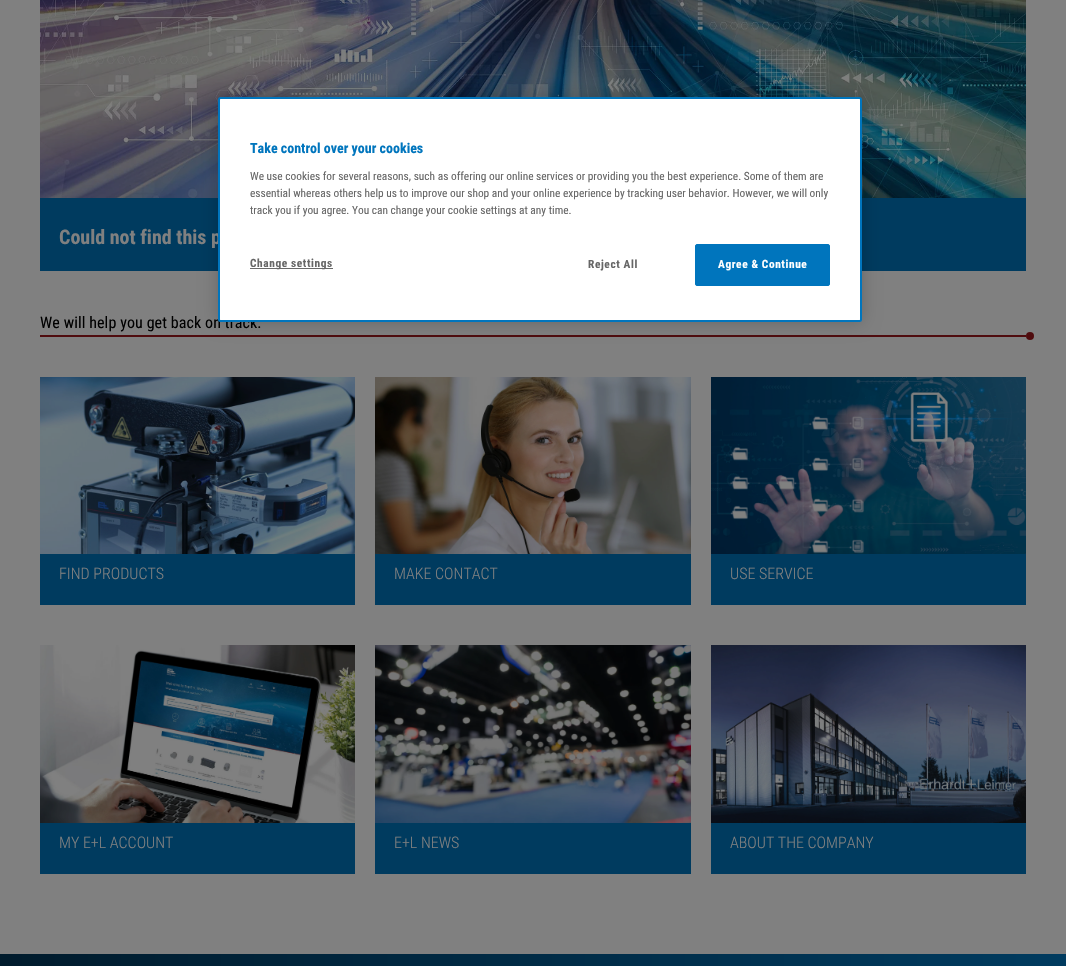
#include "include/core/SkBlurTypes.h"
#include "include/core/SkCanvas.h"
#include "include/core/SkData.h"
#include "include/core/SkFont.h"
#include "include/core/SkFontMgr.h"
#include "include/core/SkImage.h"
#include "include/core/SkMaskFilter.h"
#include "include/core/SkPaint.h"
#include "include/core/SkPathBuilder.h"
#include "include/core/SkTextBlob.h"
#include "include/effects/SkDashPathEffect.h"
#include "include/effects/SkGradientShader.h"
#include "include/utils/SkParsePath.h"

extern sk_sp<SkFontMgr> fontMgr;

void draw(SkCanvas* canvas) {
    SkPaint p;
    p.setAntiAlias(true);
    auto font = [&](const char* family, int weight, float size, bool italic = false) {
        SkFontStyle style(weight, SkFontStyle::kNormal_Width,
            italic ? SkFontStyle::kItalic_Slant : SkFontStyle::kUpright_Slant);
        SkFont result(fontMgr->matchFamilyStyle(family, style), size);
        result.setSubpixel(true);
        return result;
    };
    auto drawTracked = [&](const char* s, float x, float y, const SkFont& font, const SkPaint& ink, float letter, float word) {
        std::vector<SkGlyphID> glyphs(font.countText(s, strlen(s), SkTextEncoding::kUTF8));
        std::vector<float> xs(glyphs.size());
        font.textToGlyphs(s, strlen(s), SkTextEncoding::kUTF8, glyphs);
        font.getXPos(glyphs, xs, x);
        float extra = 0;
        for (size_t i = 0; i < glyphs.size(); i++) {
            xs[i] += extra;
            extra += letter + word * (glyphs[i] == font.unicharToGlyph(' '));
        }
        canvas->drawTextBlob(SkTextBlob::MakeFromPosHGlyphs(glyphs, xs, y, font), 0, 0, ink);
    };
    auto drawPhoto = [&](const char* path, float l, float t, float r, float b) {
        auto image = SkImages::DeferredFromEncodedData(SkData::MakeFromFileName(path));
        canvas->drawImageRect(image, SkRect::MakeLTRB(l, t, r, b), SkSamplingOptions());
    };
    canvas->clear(0xFF808080);
    drawPhoto("media/1.png", 40, 0, 1026, 198);
    p.setColor(0xFF003B5F);
    canvas->drawRect(SkRect::MakeLTRB(40, 198, 1026, 271), p);
    p.setColor(0xFF4F0C0E);
    canvas->drawRect(SkRect::MakeLTRB(40, 335, 1026, 337), p);
    p.setColor(0x33000000);
    p.setMaskFilter(SkMaskFilter::MakeBlur(kNormal_SkBlurStyle, 9));
    canvas->drawRoundRect(SkRect::MakeLTRB(218, 97, 862, 322), 2.5f, 2.5f, p);
    p.setMaskFilter(nullptr);
    auto font1 = font("Roboto Condensed", 700, 20);
    p.setColor(0xFF808080);
    canvas->drawString("Could not find this p", 59, 244, font1, p);
    auto font2 = font("Roboto Condensed", 400, 16);
    p.setColor(0xFF000000);
    drawTracked("We will help you get back on track.", 40, 328, font2, p, 0.1f, 0);
    p.setColor(0xFFFFFFFF);
    canvas->drawRoundRect(SkRect::MakeLTRB(219, 98, 861, 321), 1.5f, 1.5f, p);
    p.setStyle(SkPaint::kStroke_Style);
    p.setStrokeWidth(2);
    p.setColor(0xFF0075BD);
    canvas->drawRoundRect(SkRect::MakeLTRB(219, 98, 861, 321), 1.5f, 1.5f, p);
    auto font3 = font("Roboto Condensed", 700, 14);
    p.setStyle(SkPaint::kFill_Style);
    canvas->drawString("Take control over your cookies", 250, 153, font3, p);
    auto font4 = font("Roboto Condensed", 400, 11.38f);
    p.setColor(0xFF666666);
    {
        const struct { const char* s; float x, y; } items[] = {
            {"We use cookies for several reasons, such as offering our online services or providing you the best experience. Some of them are", 250, 180},
            {"essential whereas others help us to improve our shop and your online experience by tracking user behavior. However, we will only", 250, 197},
            {"track you if you agree. You can change your cookie settings at any time.", 250, 214},
        };
        for (auto [s, x, y] : items) {
            canvas->drawString(s, x, y, font4, p);
        }
    }
    p.setColor(0xFF696969);
    canvas->drawRect(SkRect::MakeLTRB(250, 268, 333, 269), p);
    auto font5 = font("Roboto Condensed", 700, 11.38f);
    p.setColor(0xFF666666);
    drawTracked("Change settings", 250, 267, font5, p, 0.6f, 0);
    drawTracked("Reject All", 588, 268, font5, p, 0.6f, 0);
    p.setColor(0xFF0075BD);
    canvas->drawRoundRect(SkRect::MakeLTRB(695.5f, 244.5f, 829.5f, 285.5f), 1.5f, 1.5f, p);
    p.setStyle(SkPaint::kStroke_Style);
    p.setStrokeWidth(1);
    canvas->drawRoundRect(SkRect::MakeLTRB(695.5f, 244.5f, 829.5f, 285.5f), 1.5f, 1.5f, p);
    p.setStyle(SkPaint::kFill_Style);
    p.setColor(0xFFFFFFFF);
    drawTracked("Agree & Continue", 718, 268, font5, p, 0.6f, 0);
    p.setColor(0xFF4F0C0E);
    canvas->drawCircle(1030, 336, 4, p);
    drawPhoto("media/2.png", 40, 377, 355, 554);
    p.setColor(0xFF003B5F);
    canvas->drawRect(SkRect::MakeLTRB(40, 554, 355, 605), p);
    auto font6 = font("Roboto Condensed", 300, 16);
    p.setColor(0xFF808080);
    canvas->drawString("FIND PRODUCTS", 59, 579, font6, p);
    drawPhoto("media/3.png", 375, 377, 691, 554);
    p.setColor(0xFF003B5F);
    canvas->drawRect(SkRect::MakeLTRB(375, 554, 691, 605), p);
    p.setColor(0xFF808080);
    canvas->drawString("MAKE CONTACT", 394, 579, font6, p);
    drawPhoto("media/4.png", 711, 377, 1026, 554);
    p.setColor(0xFF003B5F);
    canvas->drawRect(SkRect::MakeLTRB(711, 554, 1026, 605), p);
    p.setColor(0xFF808080);
    canvas->drawString("USE SERVICE", 730, 579, font6, p);
    drawPhoto("media/5.png", 40, 645, 355, 823);
    p.setColor(0xFF003B5F);
    canvas->drawRect(SkRect::MakeLTRB(40, 823, 355, 874), p);
    p.setColor(0xFF808080);
    canvas->drawString("MY E+L ACCOUNT", 59, 848, font6, p);
    drawPhoto("media/6.png", 375, 645, 691, 823);
    p.setColor(0xFF003B5F);
    canvas->drawRect(SkRect::MakeLTRB(375, 823, 691, 874), p);
    p.setColor(0xFF808080);
    canvas->drawString("E+L NEWS", 394, 848, font6, p);
    drawPhoto("media/7.png", 711, 645, 1026, 823);
    p.setColor(0xFF003B5F);
    canvas->drawRect(SkRect::MakeLTRB(711, 823, 1026, 874), p);
    p.setColor(0xFF808080);
    canvas->drawString("ABOUT THE COMPANY", 730, 848, font6, p);
    {
        const SkColor colors[] = {0xFF003B5F, 0xFF001929, 0xFF7F7F80, 0xFF808080};
        const float stops[] = {0, 1, 1, 1};
        const SkPoint ends[] = {{1066, 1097}, {-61, 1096}};
        p.setShader(SkGradientShader::MakeLinear(ends, colors, stops, 4, SkTileMode::kClamp));
        p.setAlpha(255);
    }
    canvas->drawRect(SkRect::MakeLTRB(0, 954, 1066, 966), p);
}
